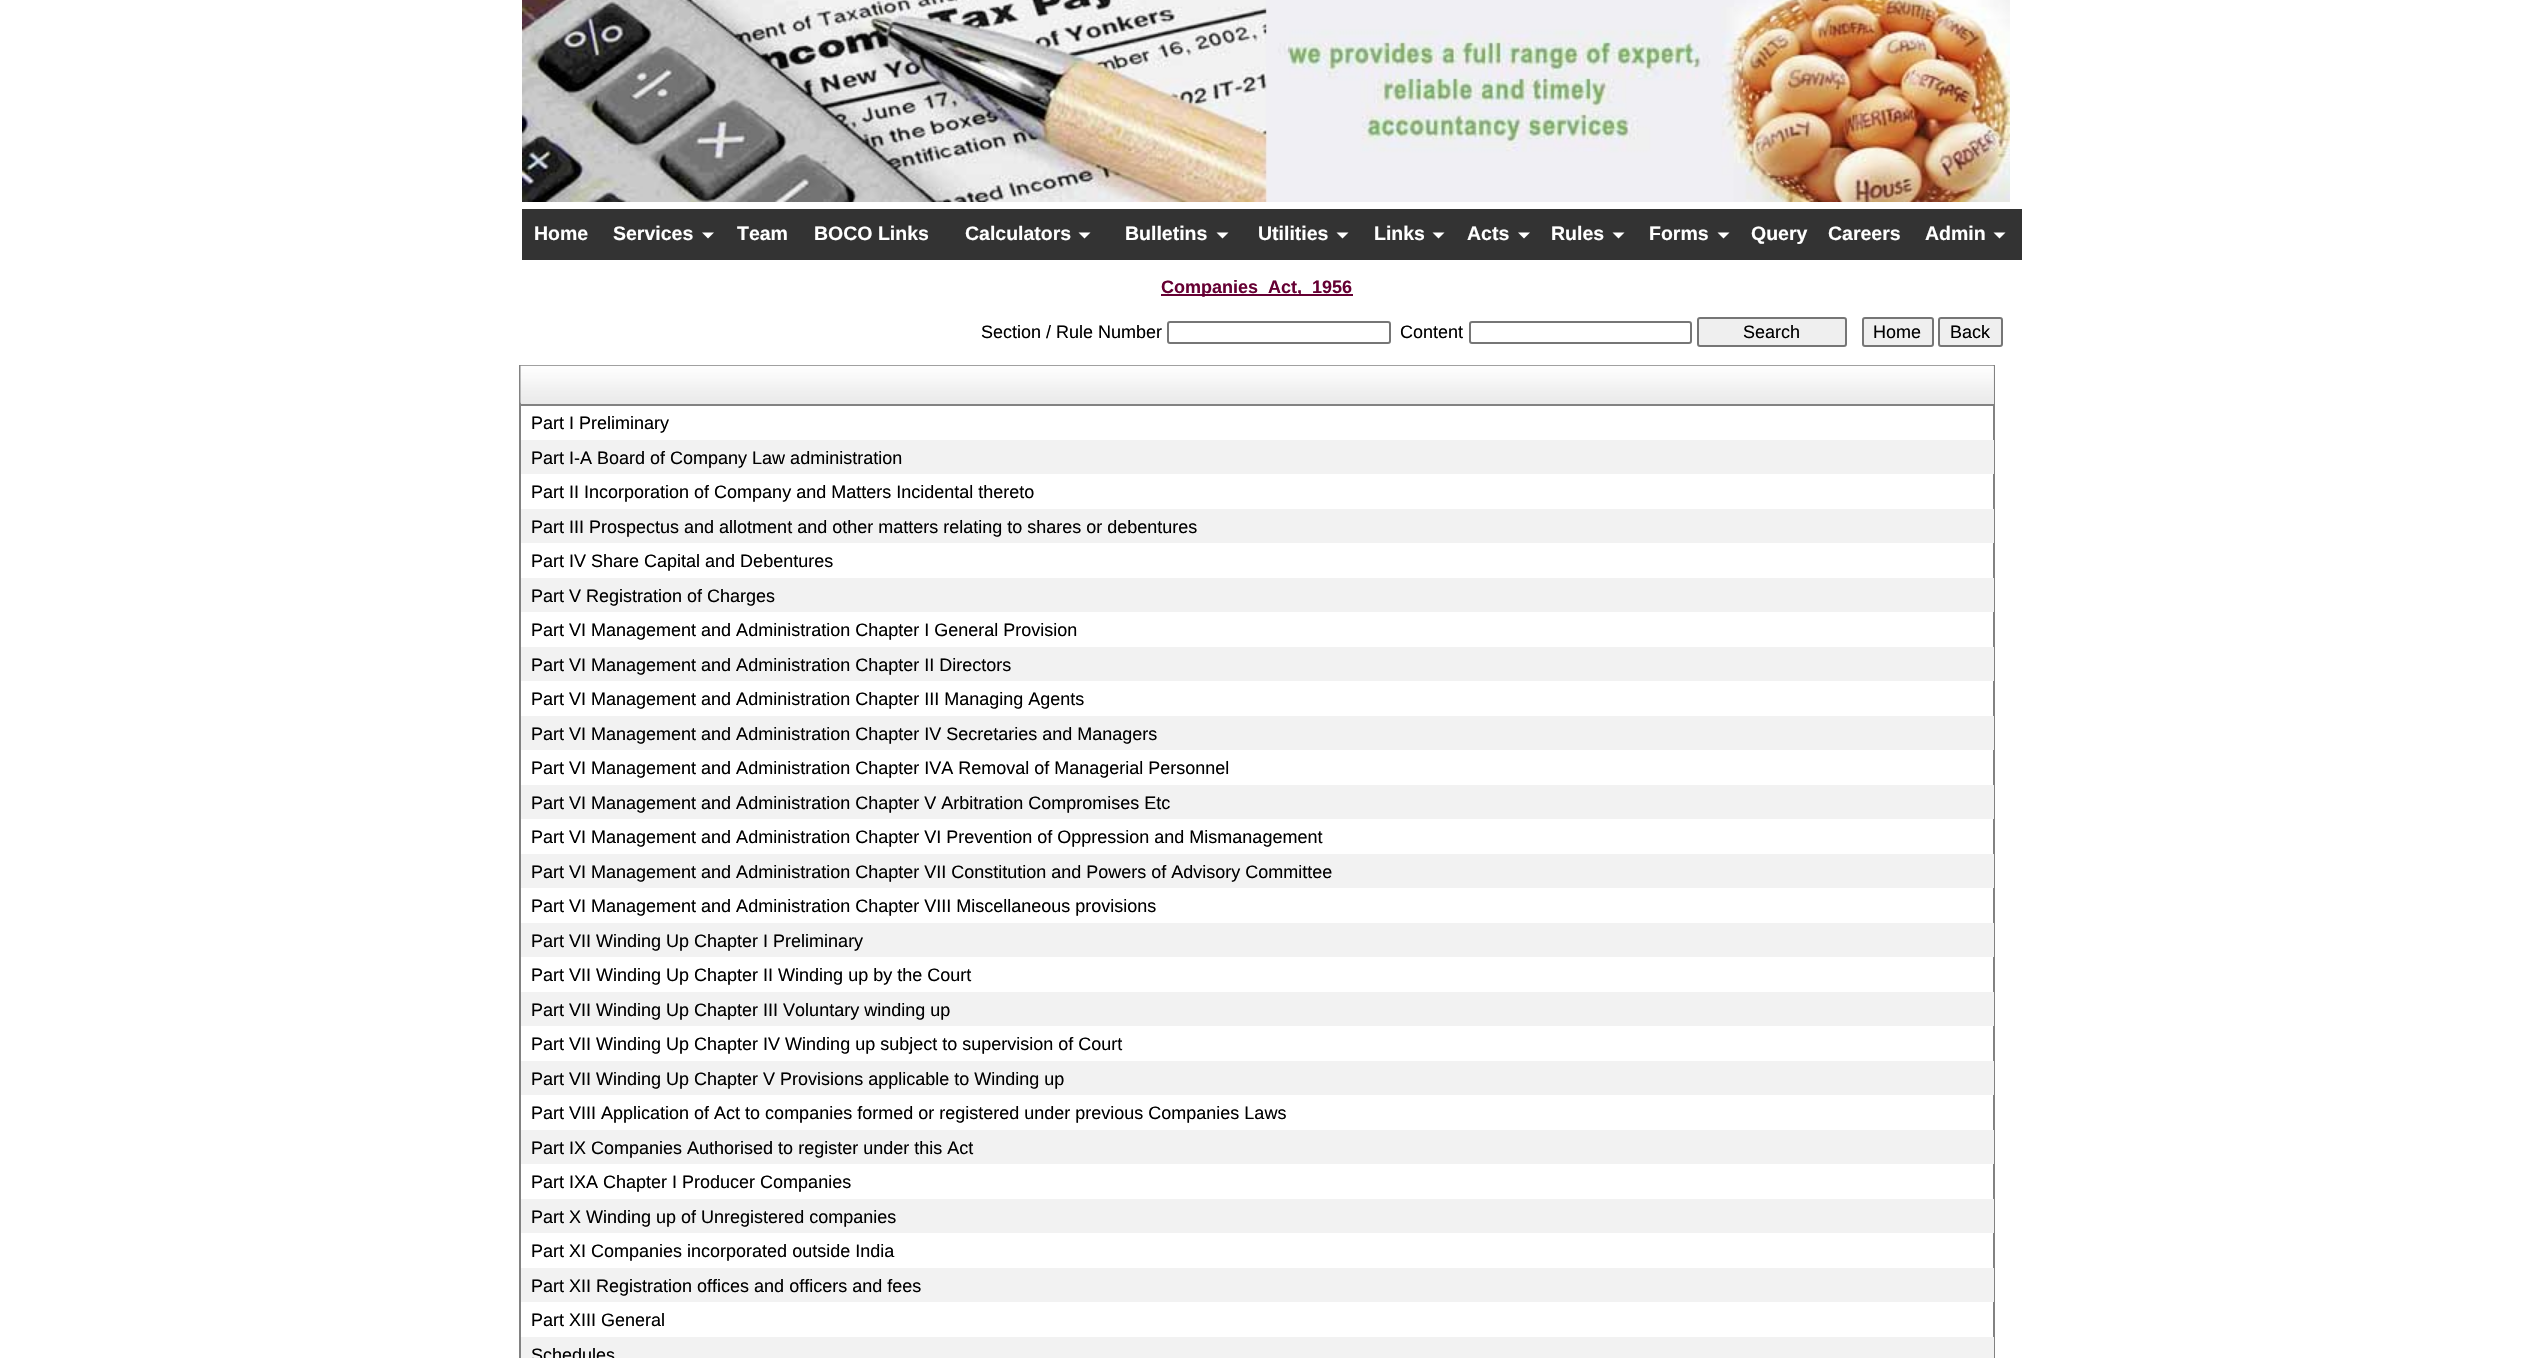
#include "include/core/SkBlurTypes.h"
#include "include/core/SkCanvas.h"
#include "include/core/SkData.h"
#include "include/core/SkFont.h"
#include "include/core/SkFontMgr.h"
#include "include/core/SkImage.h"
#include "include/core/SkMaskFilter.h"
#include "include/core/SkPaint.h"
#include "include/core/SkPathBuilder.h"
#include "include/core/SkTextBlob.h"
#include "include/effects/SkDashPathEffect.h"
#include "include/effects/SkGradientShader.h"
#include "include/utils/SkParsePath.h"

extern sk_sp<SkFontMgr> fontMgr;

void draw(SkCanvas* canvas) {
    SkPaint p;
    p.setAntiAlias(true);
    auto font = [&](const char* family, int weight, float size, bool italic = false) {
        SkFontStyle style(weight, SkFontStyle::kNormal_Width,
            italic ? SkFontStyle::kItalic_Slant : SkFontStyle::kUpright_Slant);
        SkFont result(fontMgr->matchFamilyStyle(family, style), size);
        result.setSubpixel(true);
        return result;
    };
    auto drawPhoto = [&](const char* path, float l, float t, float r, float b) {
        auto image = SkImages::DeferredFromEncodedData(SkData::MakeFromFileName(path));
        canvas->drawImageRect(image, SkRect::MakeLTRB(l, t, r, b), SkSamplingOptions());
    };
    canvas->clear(0xFFFFFFFF);
    drawPhoto("media/1.png", 522, 0, 2010, 202);
    p.setColor(0xFF333333);
    canvas->drawRect(SkRect::MakeLTRB(522, 209, 2022, 260), p);
    auto font1 = font("Liberation Sans", 700, 19.5f);
    p.setColor(0xFFFFFFFF);
    canvas->drawString("Home", 534, 240, font1, p);
    canvas->drawString("Services", 613, 240, font1, p);
    canvas->drawPath(SkPathBuilder().moveTo(702, 232.5f).lineTo(714, 232.5f).lineTo(708, 238.5f).close().detach(), p);
    {
        const struct { const char* s; float x, y; } items[] = {
            {"Team", 737, 240},
            {"BOCO Links", 814, 240},
            {"Calculators", 965, 240},
        };
        for (auto [s, x, y] : items) {
            canvas->drawString(s, x, y, font1, p);
        }
    }
    canvas->drawPath(SkPathBuilder().moveTo(1078.5f, 232.5f).lineTo(1090.5f, 232.5f).lineTo(1084.5f, 238.5f).close().detach(), p);
    canvas->drawString("Bulletins", 1125, 240, font1, p);
    canvas->drawPath(SkPathBuilder().moveTo(1216.5f, 232.5f).lineTo(1228.5f, 232.5f).lineTo(1222.5f, 238.5f).close().detach(), p);
    canvas->drawString("Utilities", 1258, 240, font1, p);
    canvas->drawPath(SkPathBuilder().moveTo(1336.5f, 232.5f).lineTo(1348.5f, 232.5f).lineTo(1342.5f, 238.5f).close().detach(), p);
    canvas->drawString("Links", 1374, 240, font1, p);
    canvas->drawPath(SkPathBuilder().moveTo(1432.5f, 232.5f).lineTo(1444.5f, 232.5f).lineTo(1438.5f, 238.5f).close().detach(), p);
    canvas->drawString("Acts", 1467, 240, font1, p);
    canvas->drawPath(SkPathBuilder().moveTo(1518, 232.5f).lineTo(1530, 232.5f).lineTo(1524, 238.5f).close().detach(), p);
    canvas->drawString("Rules", 1551, 240, font1, p);
    canvas->drawPath(SkPathBuilder().moveTo(1612.5f, 232.5f).lineTo(1624.5f, 232.5f).lineTo(1618.5f, 238.5f).close().detach(), p);
    canvas->drawString("Forms", 1649, 240, font1, p);
    canvas->drawPath(SkPathBuilder().moveTo(1717.5f, 232.5f).lineTo(1729.5f, 232.5f).lineTo(1723.5f, 238.5f).close().detach(), p);
    {
        const struct { const char* s; float x, y; } items[] = {
            {"Query", 1751, 240},
            {"Careers", 1828, 240},
            {"Admin", 1925, 240},
        };
        for (auto [s, x, y] : items) {
            canvas->drawString(s, x, y, font1, p);
        }
    }
    canvas->drawPath(SkPathBuilder().moveTo(1993.5f, 232.5f).lineTo(2005.5f, 232.5f).lineTo(1999.5f, 238.5f).close().detach(), p);
    p.setColor(0xFF660033);
    canvas->drawRect(SkRect::MakeLTRB(1161, 294, 1353, 296), p);
    auto font2 = font("Liberation Sans", 700, 18);
    canvas->drawString("Companies_Act,_1956", 1161, 293, font2, p);
    auto font3 = font("Liberation Sans", 400, 18);
    p.setColor(0xFF000000);
    canvas->drawString("Section / Rule Number", 981, 338, font3, p);
    p.setStyle(SkPaint::kStroke_Style);
    p.setStrokeWidth(2);
    p.setColor(0xFF767676);
    canvas->drawRoundRect(SkRect::MakeLTRB(1168, 322, 1390, 343), 2, 2, p);
    p.setStyle(SkPaint::kFill_Style);
    p.setColor(0xFF000000);
    canvas->drawString("Content", 1400, 338, font3, p);
    p.setStyle(SkPaint::kStroke_Style);
    p.setColor(0xFF767676);
    canvas->drawRoundRect(SkRect::MakeLTRB(1470, 322, 1691, 343), 2, 2, p);
    p.setStyle(SkPaint::kFill_Style);
    p.setColor(0xFFEFEFEF);
    canvas->drawRoundRect(SkRect::MakeLTRB(1698, 318, 1846, 346), 2, 2, p);
    p.setStyle(SkPaint::kStroke_Style);
    p.setColor(0xFF767676);
    canvas->drawRoundRect(SkRect::MakeLTRB(1698, 318, 1846, 346), 2, 2, p);
    p.setStyle(SkPaint::kFill_Style);
    p.setColor(0xFF000000);
    canvas->drawString("Search", 1743, 338, font3, p);
    p.setColor(0xFFEFEFEF);
    canvas->drawRoundRect(SkRect::MakeLTRB(1863, 318, 1933, 346), 2, 2, p);
    p.setStyle(SkPaint::kStroke_Style);
    p.setColor(0xFF767676);
    canvas->drawRoundRect(SkRect::MakeLTRB(1863, 318, 1933, 346), 2, 2, p);
    p.setStyle(SkPaint::kFill_Style);
    p.setColor(0xFF000000);
    canvas->drawString("Home", 1873, 338, font3, p);
    p.setColor(0xFFEFEFEF);
    canvas->drawRoundRect(SkRect::MakeLTRB(1939, 318, 2002, 346), 2, 2, p);
    p.setStyle(SkPaint::kStroke_Style);
    p.setColor(0xFF767676);
    canvas->drawRoundRect(SkRect::MakeLTRB(1939, 318, 2002, 346), 2, 2, p);
    p.setStyle(SkPaint::kFill_Style);
    p.setColor(0xFF000000);
    canvas->drawString("Back", 1950, 338, font3, p);
    p.setStyle(SkPaint::kStroke_Style);
    p.setColor(0xFF828282);
    canvas->drawRect(SkRect::MakeLTRB(520, 366, 1994, 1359), p);
    p.setStyle(SkPaint::kFill_Style);
    p.setColor(0xFFEAEAEA);
    canvas->drawRect(SkRect::MakeLTRB(521, 366, 1994, 404), p);
    drawPhoto("media/2.png", 520, 365, 1994, 404);
    p.setColor(0xFF828282);
    canvas->drawRect(SkRect::MakeLTRB(521, 404, 1994, 406), p);
    p.setColor(0xFF000000);
    canvas->drawString("Part I Preliminary", 531, 429, font3, p);
    p.setColor(0xFFF2F2F2);
    canvas->drawRect(SkRect::MakeLTRB(521, 440, 1994, 474), p);
    p.setColor(0xFF000000);
    canvas->drawString("Part I-A Board of Company Law administration", 531, 464, font3, p);
    canvas->drawString("Part II Incorporation of Company and Matters Incidental thereto", 531, 498, font3, p);
    p.setColor(0xFFF2F2F2);
    canvas->drawRect(SkRect::MakeLTRB(521, 509, 1994, 543), p);
    p.setColor(0xFF000000);
    canvas->drawString("Part III Prospectus and allotment and other matters relating to shares or debentures", 531, 533, font3, p);
    canvas->drawString("Part IV Share Capital and Debentures", 531, 567, font3, p);
    p.setColor(0xFFF2F2F2);
    canvas->drawRect(SkRect::MakeLTRB(521, 578, 1994, 612), p);
    p.setColor(0xFF000000);
    canvas->drawString("Part V Registration of Charges", 531, 602, font3, p);
    canvas->drawString("Part VI Management and Administration Chapter I General Provision", 531, 636, font3, p);
    p.setColor(0xFFF2F2F2);
    canvas->drawRect(SkRect::MakeLTRB(521, 647, 1994, 681), p);
    p.setColor(0xFF000000);
    canvas->drawString("Part VI Management and Administration Chapter II Directors", 531, 671, font3, p);
    canvas->drawString("Part VI Management and Administration Chapter III Managing Agents", 531, 705, font3, p);
    p.setColor(0xFFF2F2F2);
    canvas->drawRect(SkRect::MakeLTRB(521, 716, 1994, 750), p);
    p.setColor(0xFF000000);
    canvas->drawString("Part VI Management and Administration Chapter IV Secretaries and Managers", 531, 740, font3, p);
    canvas->drawString("Part VI Management and Administration Chapter IVA Removal of Managerial Personnel", 531, 774, font3, p);
    p.setColor(0xFFF2F2F2);
    canvas->drawRect(SkRect::MakeLTRB(521, 785, 1994, 819), p);
    p.setColor(0xFF000000);
    canvas->drawString("Part VI Management and Administration Chapter V Arbitration Compromises Etc", 531, 809, font3, p);
    canvas->drawString("Part VI Management and Administration Chapter VI Prevention of Oppression and Mismanagement", 531, 843, font3, p);
    p.setColor(0xFFF2F2F2);
    canvas->drawRect(SkRect::MakeLTRB(521, 854, 1994, 888), p);
    p.setColor(0xFF000000);
    canvas->drawString("Part VI Management and Administration Chapter VII Constitution and Powers of Advisory Committee", 531, 878, font3, p);
    canvas->drawString("Part VI Management and Administration Chapter VIII Miscellaneous provisions", 531, 912, font3, p);
    p.setColor(0xFFF2F2F2);
    canvas->drawRect(SkRect::MakeLTRB(521, 923, 1994, 957), p);
    p.setColor(0xFF000000);
    canvas->drawString("Part VII Winding Up Chapter I Preliminary", 531, 947, font3, p);
    canvas->drawString("Part VII Winding Up Chapter II Winding up by the Court", 531, 981, font3, p);
    p.setColor(0xFFF2F2F2);
    canvas->drawRect(SkRect::MakeLTRB(521, 992, 1994, 1026), p);
    p.setColor(0xFF000000);
    canvas->drawString("Part VII Winding Up Chapter III Voluntary winding up", 531, 1016, font3, p);
    canvas->drawString("Part VII Winding Up Chapter IV Winding up subject to supervision of Court", 531, 1050, font3, p);
    p.setColor(0xFFF2F2F2);
    canvas->drawRect(SkRect::MakeLTRB(521, 1061, 1994, 1095), p);
    p.setColor(0xFF000000);
    canvas->drawString("Part VII Winding Up Chapter V Provisions applicable to Winding up", 531, 1085, font3, p);
    canvas->drawString("Part VIII Application of Act to companies formed or registered under previous Companies Laws", 531, 1119, font3, p);
    p.setColor(0xFFF2F2F2);
    canvas->drawRect(SkRect::MakeLTRB(521, 1130, 1994, 1164), p);
    p.setColor(0xFF000000);
    canvas->drawString("Part IX Companies Authorised to register under this Act", 531, 1154, font3, p);
    canvas->drawString("Part IXA Chapter I Producer Companies", 531, 1188, font3, p);
    p.setColor(0xFFF2F2F2);
    canvas->drawRect(SkRect::MakeLTRB(521, 1199, 1994, 1233), p);
    p.setColor(0xFF000000);
    canvas->drawString("Part X Winding up of Unregistered companies", 531, 1223, font3, p);
    canvas->drawString("Part XI Companies incorporated outside India", 531, 1257, font3, p);
    p.setColor(0xFFF2F2F2);
    canvas->drawRect(SkRect::MakeLTRB(521, 1268, 1994, 1302), p);
    p.setColor(0xFF000000);
    canvas->drawString("Part XII Registration offices and officers and fees", 531, 1292, font3, p);
    canvas->drawString("Part XIII General", 531, 1326, font3, p);
    p.setColor(0xFFF2F2F2);
    canvas->drawRect(SkRect::MakeLTRB(521, 1337, 1994, 1358), p);
    p.setColor(0xFF000000);
    canvas->drawString("Schedules", 531, 1361, font3, p);
}
